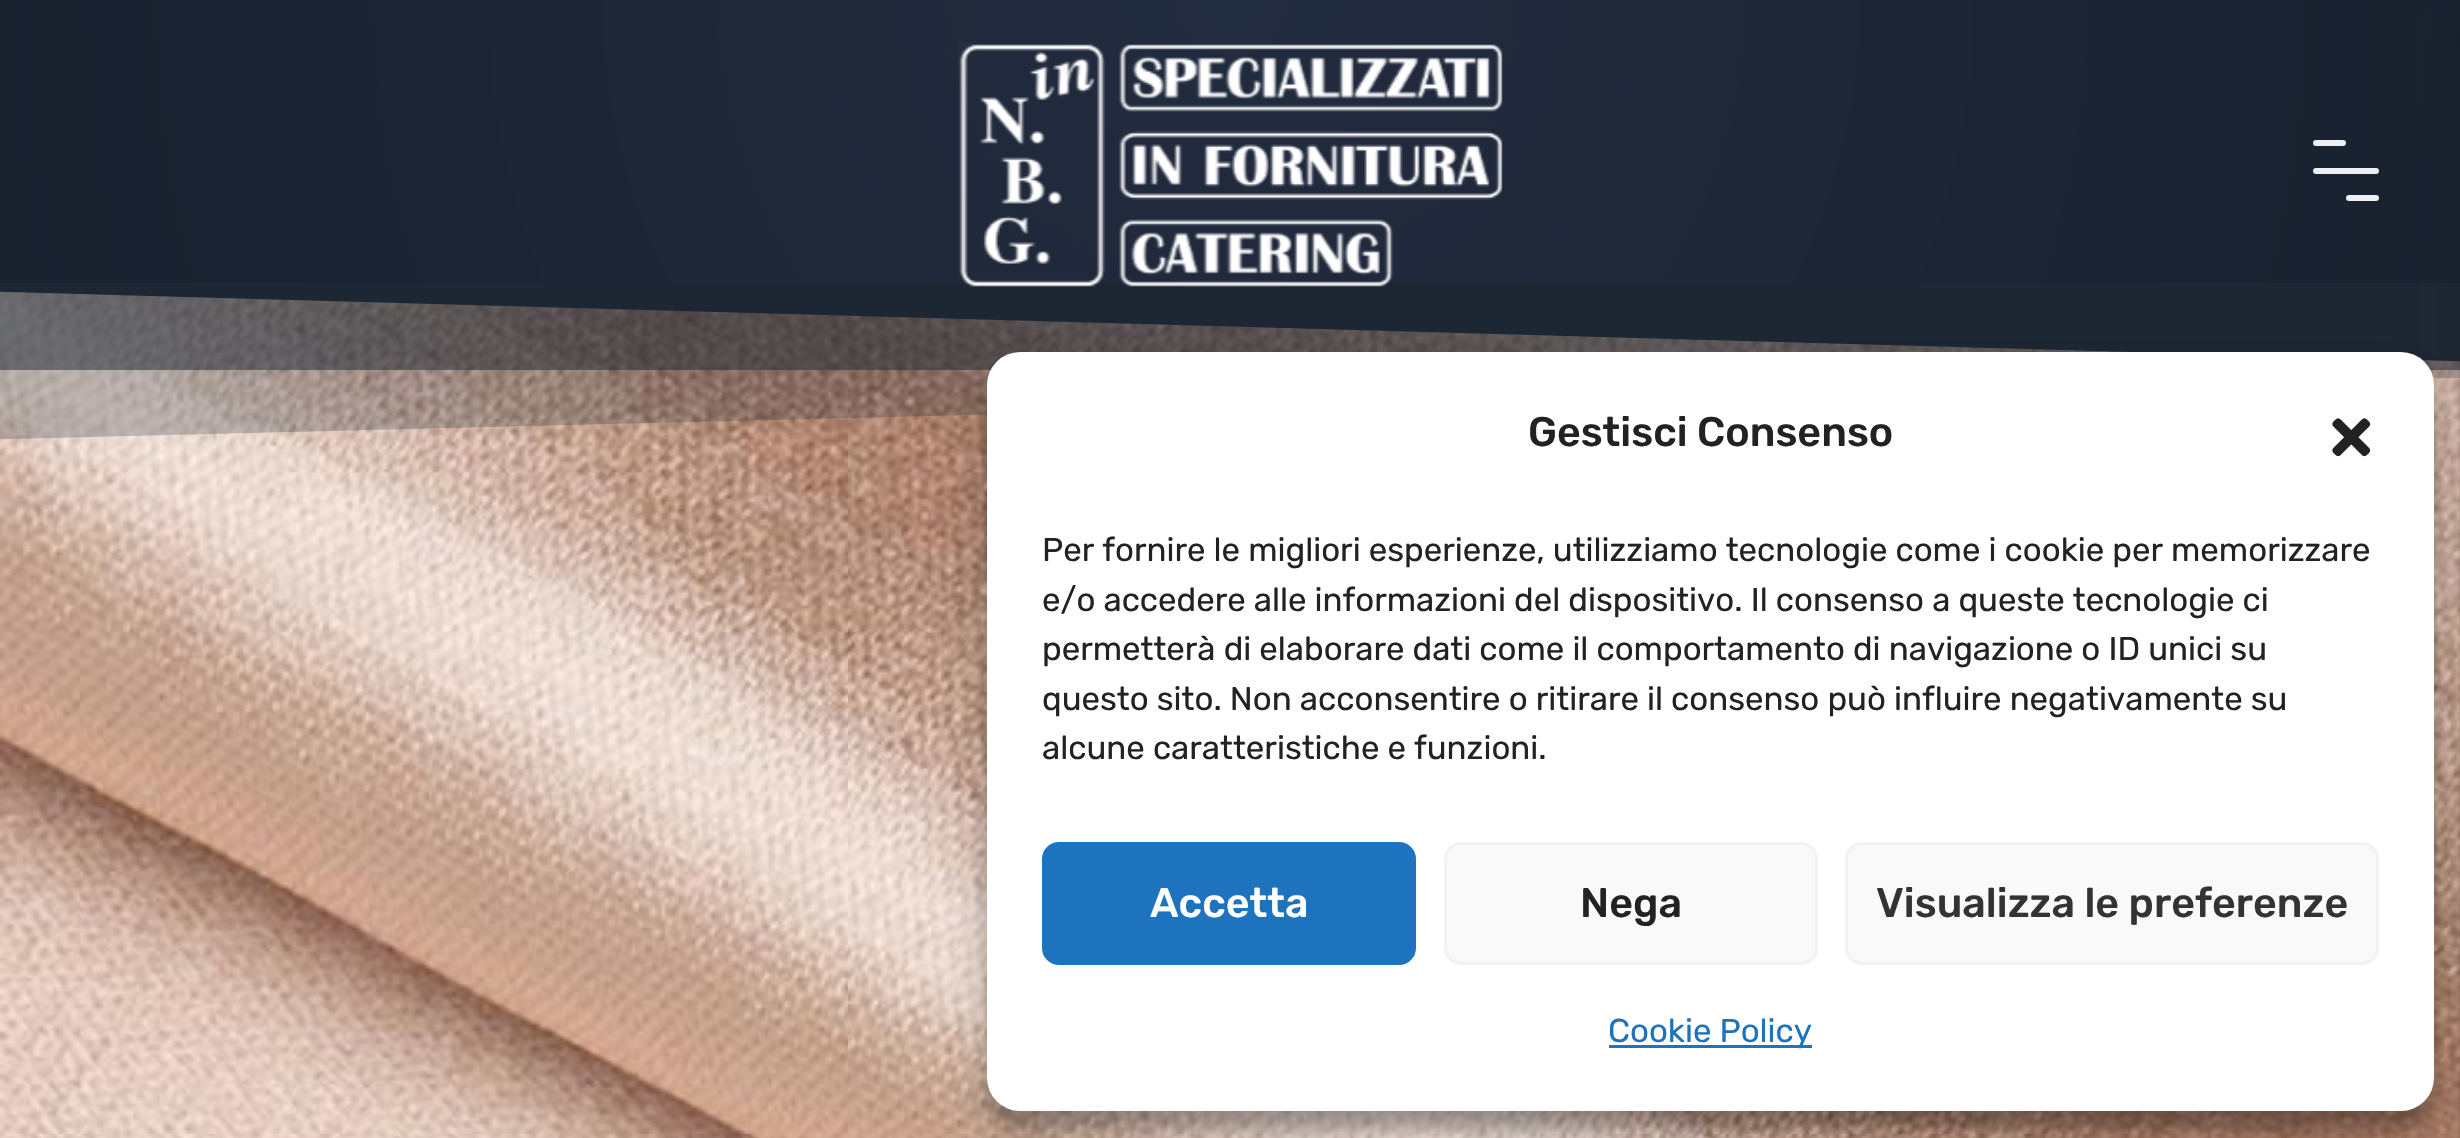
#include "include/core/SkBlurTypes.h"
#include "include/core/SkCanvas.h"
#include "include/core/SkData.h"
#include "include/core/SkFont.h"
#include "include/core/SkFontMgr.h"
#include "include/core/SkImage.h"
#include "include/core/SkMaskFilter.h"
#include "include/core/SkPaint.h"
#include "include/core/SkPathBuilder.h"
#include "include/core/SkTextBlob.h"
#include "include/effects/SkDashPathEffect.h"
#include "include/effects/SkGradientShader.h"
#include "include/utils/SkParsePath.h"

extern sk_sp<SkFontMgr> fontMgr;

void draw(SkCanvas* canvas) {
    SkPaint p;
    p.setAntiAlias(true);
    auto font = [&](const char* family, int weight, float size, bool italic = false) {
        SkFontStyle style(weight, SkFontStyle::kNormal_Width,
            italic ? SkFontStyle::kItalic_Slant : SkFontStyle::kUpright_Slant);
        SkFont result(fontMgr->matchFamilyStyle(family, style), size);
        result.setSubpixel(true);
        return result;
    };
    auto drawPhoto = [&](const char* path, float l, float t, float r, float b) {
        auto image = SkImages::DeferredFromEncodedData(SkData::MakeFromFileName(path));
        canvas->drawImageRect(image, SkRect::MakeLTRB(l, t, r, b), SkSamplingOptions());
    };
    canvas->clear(0xFFFFFFFF);
    {
        const SkColor colors[] = {0xFF222C3F, 0xFF18212E};
        const float stops[] = {0, 0.75f};
        p.setShader(SkGradientShader::MakeRadial({1231, 0}, 1676, colors, stops, 2, SkTileMode::kClamp));
        p.setAlpha(255);
    }
    canvas->drawRect(SkRect::MakeLTRB(0, 0, 2460, 1138), p);
    drawPhoto("media/2.png", 0, 291, 2460, 1138);
    p.setShader(nullptr);
    p.setColor(0xFF1C2632);
    canvas->drawPath(SkPathBuilder().moveTo(-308, 283).lineTo(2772, 283).lineTo(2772, 370).close().detach(), p);
    p.setColor(0x801C2632);
    canvas->drawRect(SkRect::MakeLTRB(0, 291, 2460, 370), p);
    p.setColor(0x401C2632);
    canvas->drawPath(SkPathBuilder().moveTo(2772, 283).lineTo(-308, 283).lineTo(-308, 447).lineTo(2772, 370).close().detach(), p);
    p.setColor(0x40111113);
    p.setMaskFilter(SkMaskFilter::MakeBlur(kNormal_SkBlurStyle, 22));
    canvas->drawRect(SkRect::MakeLTRB(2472, 22, 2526, 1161), p);
    p.setMaskFilter(nullptr);
    drawPhoto("media/1.png", 958, 42, 1503, 287);
    p.setColor(0xFFEDEFF2);
    canvas->drawRoundRect(SkRect::MakeLTRB(2313, 140, 2346, 146), 3, 3, p);
    canvas->drawRoundRect(SkRect::MakeLTRB(2313, 168, 2379, 174), 3, 3, p);
    canvas->drawRoundRect(SkRect::MakeLTRB(2346, 195, 2379, 201), 3, 3, p);
    p.setColor(0x3B000000);
    p.setMaskFilter(SkMaskFilter::MakeBlur(kNormal_SkBlurStyle, 8));
    canvas->drawRoundRect(SkRect::MakeLTRB(987, 369, 2434, 1128), 33, 33, p);
    p.setMaskFilter(nullptr);
    p.setColor(0x30000000);
    p.setMaskFilter(SkMaskFilter::MakeBlur(kNormal_SkBlurStyle, 27.5f));
    canvas->drawRoundRect(SkRect::MakeLTRB(987, 380, 2434, 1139), 33, 33, p);
    p.setMaskFilter(nullptr);
    p.setColor(0xFFFFFFFF);
    canvas->drawRoundRect(SkRect::MakeLTRB(987, 352, 2434, 1111), 33, 33, p);
    auto font1 = font("Rubik", 500, 41.25f);
    p.setColor(0xFF222222);
    canvas->drawString("Gestisci Consenso", 1528, 446, font1, p);
    drawPhoto("media/3.png", 2332, 418, 2371, 457);
    auto font2 = font("Rubik", 400, 33);
    {
        const struct { const char* s; float x, y; } items[] = {
            {"Per fornire le migliori esperienze, utilizziamo tecnologie come i cookie per memorizzare", 1042, 561},
            {"e/o accedere alle informazioni del dispositivo. Il consenso a queste tecnologie ci", 1042, 611},
            {"permetterà di elaborare dati come il comportamento di navigazione o ID unici su", 1042, 660},
            {"questo sito. Non acconsentire o ritirare il consenso può influire negativamente su", 1042, 710},
            {"alcune caratteristiche e funzioni.", 1042, 759},
        };
        for (auto [s, x, y] : items) {
            canvas->drawString(s, x, y, font2, p);
        }
    }
    p.setColor(0xFF1E73BE);
    canvas->drawRoundRect(SkRect::MakeLTRB(1043.5f, 843.5f, 1414.5f, 963.5f), 15.5f, 15.5f, p);
    p.setStyle(SkPaint::kStroke_Style);
    p.setStrokeWidth(3);
    canvas->drawRoundRect(SkRect::MakeLTRB(1043.5f, 843.5f, 1414.5f, 963.5f), 15.5f, 15.5f, p);
    p.setStyle(SkPaint::kFill_Style);
    p.setColor(0xFFFFFFFF);
    canvas->drawString("Accetta", 1150, 917, font1, p);
    p.setColor(0xFFF9F9F9);
    canvas->drawRoundRect(SkRect::MakeLTRB(1445.5f, 843.5f, 1816.5f, 963.5f), 15.5f, 15.5f, p);
    p.setStyle(SkPaint::kStroke_Style);
    p.setColor(0xFFF2F2F2);
    canvas->drawRoundRect(SkRect::MakeLTRB(1445.5f, 843.5f, 1816.5f, 963.5f), 15.5f, 15.5f, p);
    p.setStyle(SkPaint::kFill_Style);
    p.setColor(0xFF222222);
    canvas->drawString("Nega", 1580, 917, font1, p);
    p.setColor(0xFFF9F9F9);
    canvas->drawRoundRect(SkRect::MakeLTRB(1846.5f, 843.5f, 2377.5f, 963.5f), 15.5f, 15.5f, p);
    p.setStyle(SkPaint::kStroke_Style);
    p.setColor(0xFFF2F2F2);
    canvas->drawRoundRect(SkRect::MakeLTRB(1846.5f, 843.5f, 2377.5f, 963.5f), 15.5f, 15.5f, p);
    p.setStyle(SkPaint::kFill_Style);
    p.setColor(0xFF333333);
    canvas->drawString("Visualizza le preferenze", 1876, 917, font1, p);
    p.setColor(0xFF1E73BE);
    canvas->drawRect(SkRect::MakeLTRB(1609, 1045, 1812, 1048), p);
    canvas->drawString("Cookie Policy", 1608, 1042, font2, p);
}
